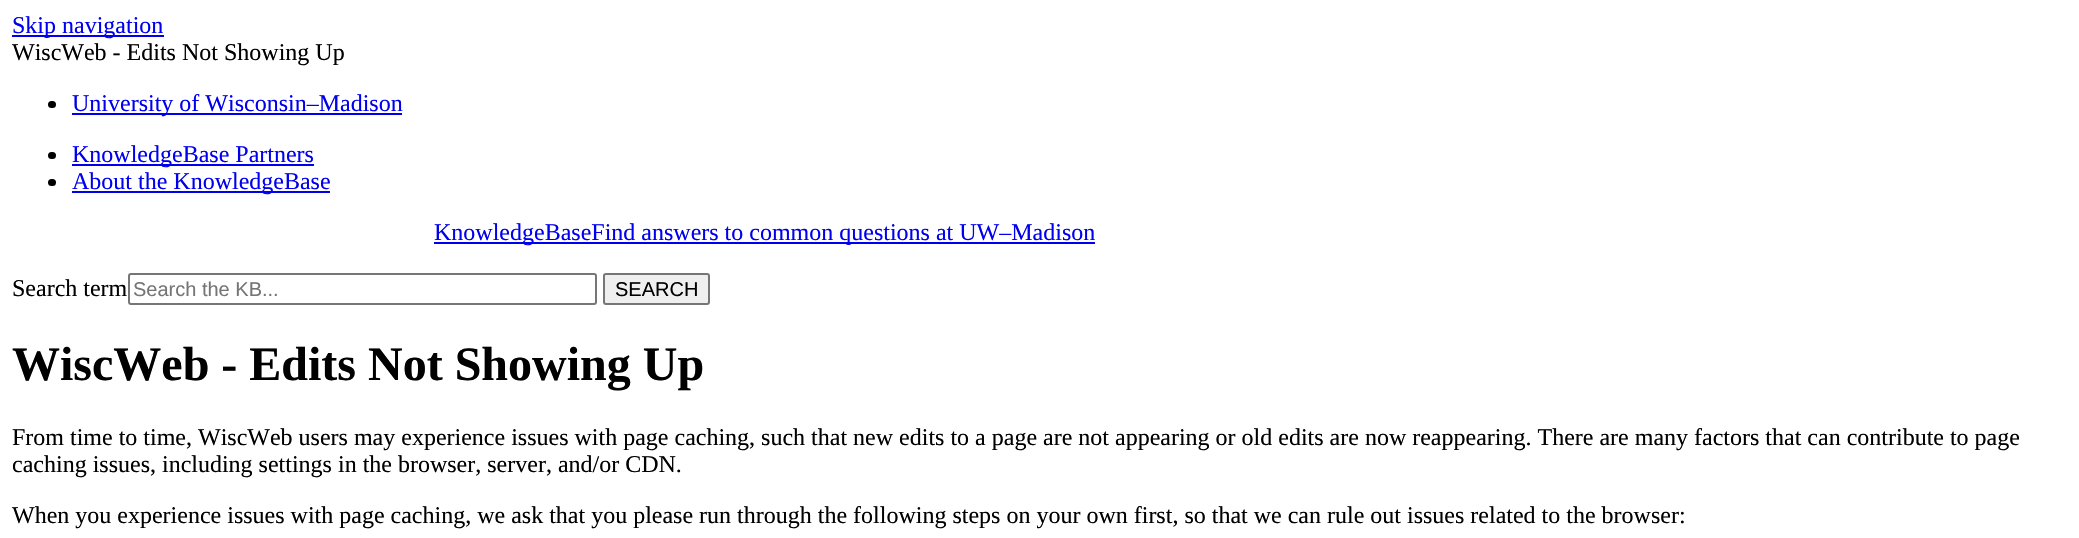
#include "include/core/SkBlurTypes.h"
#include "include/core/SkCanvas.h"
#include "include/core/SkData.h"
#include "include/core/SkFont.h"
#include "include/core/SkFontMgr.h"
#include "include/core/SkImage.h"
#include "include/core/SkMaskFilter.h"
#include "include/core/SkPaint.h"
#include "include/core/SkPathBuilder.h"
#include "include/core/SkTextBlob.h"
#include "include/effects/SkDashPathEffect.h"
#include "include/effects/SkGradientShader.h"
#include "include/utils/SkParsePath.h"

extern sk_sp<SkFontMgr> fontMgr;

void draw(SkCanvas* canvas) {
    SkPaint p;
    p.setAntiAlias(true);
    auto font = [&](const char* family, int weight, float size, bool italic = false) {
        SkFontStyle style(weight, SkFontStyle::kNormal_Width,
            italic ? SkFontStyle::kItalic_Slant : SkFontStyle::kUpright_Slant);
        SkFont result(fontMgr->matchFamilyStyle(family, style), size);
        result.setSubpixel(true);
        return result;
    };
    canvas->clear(0xFFFFFFFF);
    p.setColor(0xFF0000EE);
    canvas->drawRect(SkRect::MakeLTRB(12, 35, 164, 37), p);
    auto font1 = font("Liberation Serif", 400, 24);
    canvas->drawString("Skip navigation", 12, 33, font1, p);
    p.setColor(0xFF000000);
    canvas->drawString("WiscWeb - Edits Not Showing Up", 12, 60, font1, p);
    canvas->drawRoundRect(SkRect::MakeLTRB(48, 101, 56, 108), 3.5f, 3.5f, p);
    p.setColor(0xFF0000EE);
    canvas->drawRect(SkRect::MakeLTRB(72, 113, 402, 115), p);
    canvas->drawString("University of Wisconsin–Madison", 72, 111, font1, p);
    p.setColor(0xFF000000);
    canvas->drawRoundRect(SkRect::MakeLTRB(48, 152, 56, 159), 3.5f, 3.5f, p);
    p.setColor(0xFF0000EE);
    canvas->drawRect(SkRect::MakeLTRB(72, 164, 314, 166), p);
    canvas->drawString("KnowledgeBase Partners", 72, 162, font1, p);
    p.setColor(0xFF000000);
    canvas->drawRoundRect(SkRect::MakeLTRB(48, 179, 56, 186), 3.5f, 3.5f, p);
    p.setColor(0xFF0000EE);
    canvas->drawRect(SkRect::MakeLTRB(72, 191, 330, 193), p);
    canvas->drawString("About the KnowledgeBase", 72, 189, font1, p);
    canvas->drawRect(SkRect::MakeLTRB(434, 242, 1095, 244), p);
    canvas->drawString("KnowledgeBaseFind answers to common questions at UW–Madison", 434, 240, font1, p);
    p.setColor(0xFF000000);
    canvas->drawString("Search term", 12, 296, font1, p);
    p.setStyle(SkPaint::kStroke_Style);
    p.setStrokeWidth(2);
    p.setColor(0xFF767676);
    canvas->drawRoundRect(SkRect::MakeLTRB(129, 274, 596, 304), 2, 2, p);
    auto font2 = font("Liberation Sans", 400, 20);
    p.setStyle(SkPaint::kFill_Style);
    p.setColor(0xFF757575);
    canvas->drawString("Search the KB...", 133, 296, font2, p);
    p.setColor(0xFFEFEFEF);
    canvas->drawRoundRect(SkRect::MakeLTRB(604, 274, 709, 304), 2, 2, p);
    p.setStyle(SkPaint::kStroke_Style);
    p.setColor(0xFF767676);
    canvas->drawRoundRect(SkRect::MakeLTRB(604, 274, 709, 304), 2, 2, p);
    p.setStyle(SkPaint::kFill_Style);
    p.setColor(0xFF000000);
    canvas->drawString("SEARCH", 615, 296, font2, p);
    auto font3 = font("Liberation Serif", 700, 48);
    canvas->drawString("WiscWeb - Edits Not Showing Up", 12, 380, font3, p);
    {
        const struct { const char* s; float x, y; } items[] = {
            {"From time to time, WiscWeb users may experience issues with page caching, such that new edits to a page are not appearing or old edits are now reappearing. There are many factors that can contribute to page", 12, 445},
            {"caching issues, including settings in the browser, server, and/or CDN.", 12, 472},
            {"When you experience issues with page caching, we ask that you please run through the following steps on your own first, so that we can rule out issues related to the browser:", 12, 523},
        };
        for (auto [s, x, y] : items) {
            canvas->drawString(s, x, y, font1, p);
        }
    }
}
